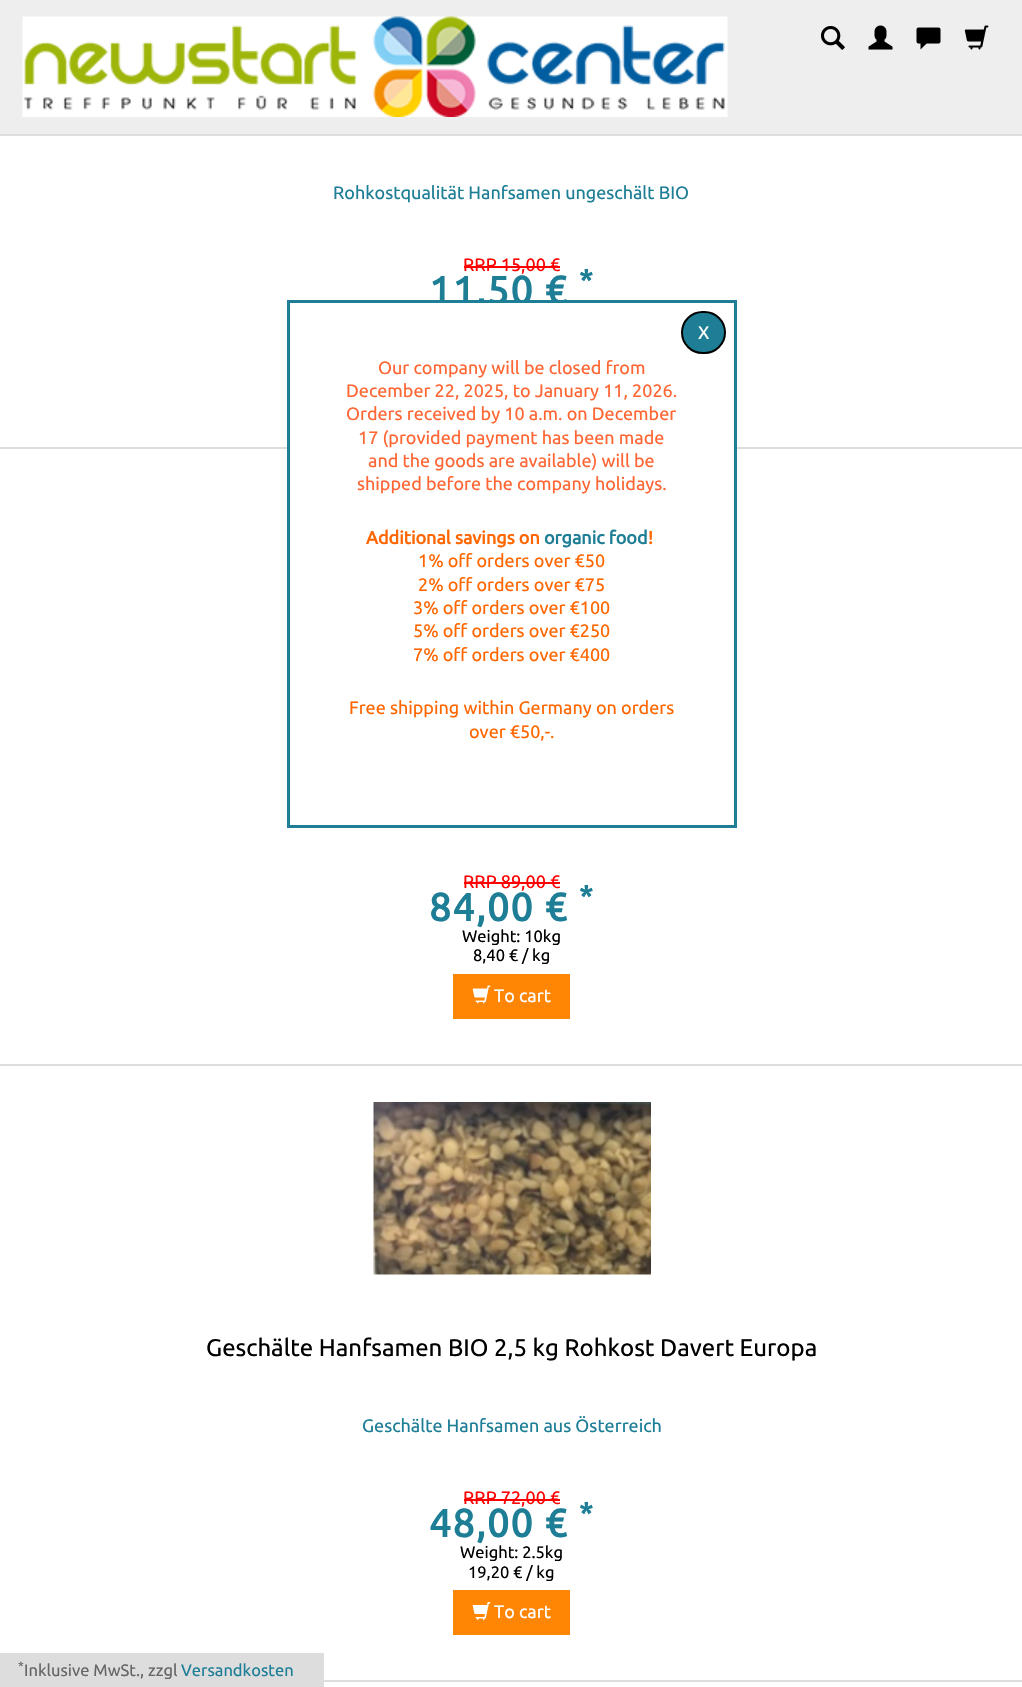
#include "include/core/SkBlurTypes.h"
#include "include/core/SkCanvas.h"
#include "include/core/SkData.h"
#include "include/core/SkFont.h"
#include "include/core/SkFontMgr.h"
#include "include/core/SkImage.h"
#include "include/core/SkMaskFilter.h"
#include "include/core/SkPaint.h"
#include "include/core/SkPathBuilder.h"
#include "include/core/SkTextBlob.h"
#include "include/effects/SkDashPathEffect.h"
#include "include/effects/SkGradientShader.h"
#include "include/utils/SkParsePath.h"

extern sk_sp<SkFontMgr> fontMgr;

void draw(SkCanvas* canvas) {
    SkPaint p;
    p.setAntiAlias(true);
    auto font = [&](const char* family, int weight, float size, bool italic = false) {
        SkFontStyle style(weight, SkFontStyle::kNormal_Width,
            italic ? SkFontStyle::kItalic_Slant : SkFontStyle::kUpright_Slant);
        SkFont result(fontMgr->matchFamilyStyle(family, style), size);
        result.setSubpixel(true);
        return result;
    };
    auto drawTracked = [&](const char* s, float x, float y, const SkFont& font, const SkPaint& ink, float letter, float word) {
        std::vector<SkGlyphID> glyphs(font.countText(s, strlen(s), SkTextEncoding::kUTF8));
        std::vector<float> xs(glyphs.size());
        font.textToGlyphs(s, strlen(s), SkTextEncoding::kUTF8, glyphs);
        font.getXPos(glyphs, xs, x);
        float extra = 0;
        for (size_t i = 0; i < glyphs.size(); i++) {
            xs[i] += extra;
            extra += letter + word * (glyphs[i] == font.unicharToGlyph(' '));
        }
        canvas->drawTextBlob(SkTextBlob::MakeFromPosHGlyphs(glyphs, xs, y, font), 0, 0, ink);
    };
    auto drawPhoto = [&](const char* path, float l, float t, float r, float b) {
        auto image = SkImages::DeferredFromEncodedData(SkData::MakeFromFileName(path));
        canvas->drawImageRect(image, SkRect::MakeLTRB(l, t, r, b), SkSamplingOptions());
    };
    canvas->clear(0xFFFFFFFF);
    p.setColor(0xFFEEEEEE);
    canvas->drawRect(SkRect::MakeLTRB(0, 0, 1022, 134), p);
    p.setColor(0xFFDDDDDD);
    canvas->drawRect(SkRect::MakeLTRB(0, 134, 1022, 136), p);
    drawPhoto("media/1.png", 22, 16, 728, 117);
    drawPhoto("media/2.png", 821, 26, 845, 50);
    drawPhoto("media/3.png", 868, 25, 893, 50);
    drawPhoto("media/4.png", 916, 27, 941, 50);
    drawPhoto("media/5.png", 964, 25, 989, 50);
    canvas->drawRect(SkRect::MakeLTRB(0, 447, 1022, 449), p);
    auto font1 = font("Ubuntu", 400, 18);
    p.setColor(0xFF1D7E96);
    canvas->drawString("Rohkostqualität Hanfsamen ungeschält BIO", 333, 199, font1, p);
    p.setColor(0xFFFF0000);
    canvas->drawString("RRP 15,00 €", 463, 271, font1, p);
    canvas->drawRect(SkRect::MakeLTRB(464, 266, 560, 268), p);
    auto font2 = font("Ubuntu", 700, 39);
    p.setColor(0xFF1D7E96);
    drawTracked("11,50 €", 429, 304, font2, p, 1.5f, 0);
    auto font3 = font("Ubuntu", 700, 29);
    drawTracked("*", 579, 290, font3, p, 1.5f, 0);
    p.setColor(0xFFDDDDDD);
    canvas->drawRect(SkRect::MakeLTRB(0, 1064, 1022, 1066), p);
    p.setColor(0xFFFF0000);
    canvas->drawString("RRP 89,00 €", 463, 888, font1, p);
    canvas->drawRect(SkRect::MakeLTRB(464, 882, 560, 884), p);
    p.setColor(0xFF1D7E96);
    drawTracked("*", 579, 906, font3, p, 1.5f, 0);
    drawTracked("84,00 €", 429, 921, font2, p, 1.5f, 0);
    auto font4 = font("Ubuntu", 400, 16.5f);
    p.setColor(0xFF000000);
    canvas->drawString("Weight: 10kg", 462, 942, font4, p);
    canvas->drawString("8,40 € / kg", 473, 961, font4, p);
    p.setColor(0xFFFF8604);
    canvas->drawRect(SkRect::MakeLTRB(453, 974, 570, 1019), p);
    drawPhoto("media/6.png", 472, 985, 491, 1004);
    p.setColor(0xFFFFFFFF);
    canvas->drawString("To cart", 494, 1002, font1, p);
    p.setColor(0xFFDDDDDD);
    canvas->drawRect(SkRect::MakeLTRB(324, 1680, 1022, 1682), p);
    drawPhoto("media/7.png", 373, 1102, 651, 1275);
    auto font5 = font("Ubuntu", 400, 24);
    p.setColor(0xFF000000);
    canvas->drawString("Geschälte Hanfsamen BIO 2,5 kg Rohkost Davert Europa", 206, 1356, font5, p);
    p.setColor(0xFF1D7E96);
    canvas->drawString("Geschälte Hanfsamen aus Österreich", 362, 1432, font1, p);
    p.setColor(0xFFFF0000);
    canvas->drawString("RRP 72,00 €", 463, 1504, font1, p);
    canvas->drawRect(SkRect::MakeLTRB(464, 1499, 560, 1501), p);
    p.setColor(0xFF1D7E96);
    drawTracked("48,00 €", 429, 1537, font2, p, 1.5f, 0);
    drawTracked("*", 579, 1523, font3, p, 1.5f, 0);
    p.setColor(0xFF000000);
    canvas->drawString("Weight: 2.5kg", 460, 1558, font4, p);
    canvas->drawString("19,20 € / kg", 468, 1578, font4, p);
    p.setColor(0xFFFF8604);
    canvas->drawRect(SkRect::MakeLTRB(453, 1590, 570, 1635), p);
    drawPhoto("media/8.png", 472, 1602, 491, 1620);
    p.setColor(0xFFFFFFFF);
    canvas->drawString("To cart", 494, 1618, font1, p);
    canvas->drawRect(SkRect::MakeLTRB(290, 303, 734, 449), p);
    p.setStyle(SkPaint::kStroke_Style);
    p.setStrokeWidth(3);
    p.setColor(0xFF1D7E96);
    canvas->drawRect(SkRect::MakeLTRB(288.5f, 301.5f, 735.5f, 826.5f), p);
    p.setStyle(SkPaint::kFill_Style);
    canvas->drawRoundRect(SkRect::MakeLTRB(682, 312, 725, 353), 20.5f, 20.5f, p);
    p.setStyle(SkPaint::kStroke_Style);
    p.setStrokeWidth(2);
    p.setColor(0xFF000000);
    canvas->drawRoundRect(SkRect::MakeLTRB(682, 312, 725, 353), 20.5f, 20.5f, p);
    p.setStyle(SkPaint::kFill_Style);
    p.setColor(0xFFFFFFFF);
    canvas->drawString("X", 698, 339, font1, p);
    p.setColor(0xFFFF6633);
    {
        const struct { const char* s; float x, y; } items[] = {
            {"Our company will be closed from", 378, 374},
            {"December 22, 2025, to January 11, 2026.", 346, 397},
            {"Orders received by 10 a.m. on December", 346, 420},
            {"17 (provided payment has been made", 358, 444},
            {"and the goods are available) will be", 368, 467},
            {"shipped before the company holidays.", 357, 490},
        };
        for (auto [s, x, y] : items) {
            canvas->drawString(s, x, y, font1, p);
        }
    }
    auto font6 = font("Ubuntu", 700, 18);
    p.setColor(0xFFFF6600);
    canvas->drawString("Additional savings on", 366, 544, font6, p);
    p.setColor(0xFF1D7E96);
    canvas->drawString("organic food", 544, 544, font6, p);
    p.setColor(0xFFFF6600);
    canvas->drawString("!", 648, 544, font6, p);
    {
        const struct { const char* s; float x, y; } items[] = {
            {"1% off orders over €50", 418, 567},
            {"2% off orders over €75", 418, 591},
            {"3% off orders over €100", 413, 614},
            {"5% off orders over €250", 413, 637},
            {"7% off orders over €400", 413, 661},
            {"Free shipping within Germany on orders", 349, 714},
            {"over €50,-.", 469, 738},
        };
        for (auto [s, x, y] : items) {
            canvas->drawString(s, x, y, font1, p);
        }
    }
    p.setColor(0xFFDDDDDD);
    canvas->drawRect(SkRect::MakeLTRB(0, 1653, 324, 1687), p);
    auto font7 = font("Ubuntu", 400, 12);
    p.setColor(0xFF666666);
    canvas->drawString("*", 18, 1670, font7, p);
    canvas->drawString("Inklusive MwSt., zzgl", 24, 1676, font4, p);
    p.setColor(0xFF1D7E96);
    canvas->drawString("Versandkosten", 181, 1676, font4, p);
}
